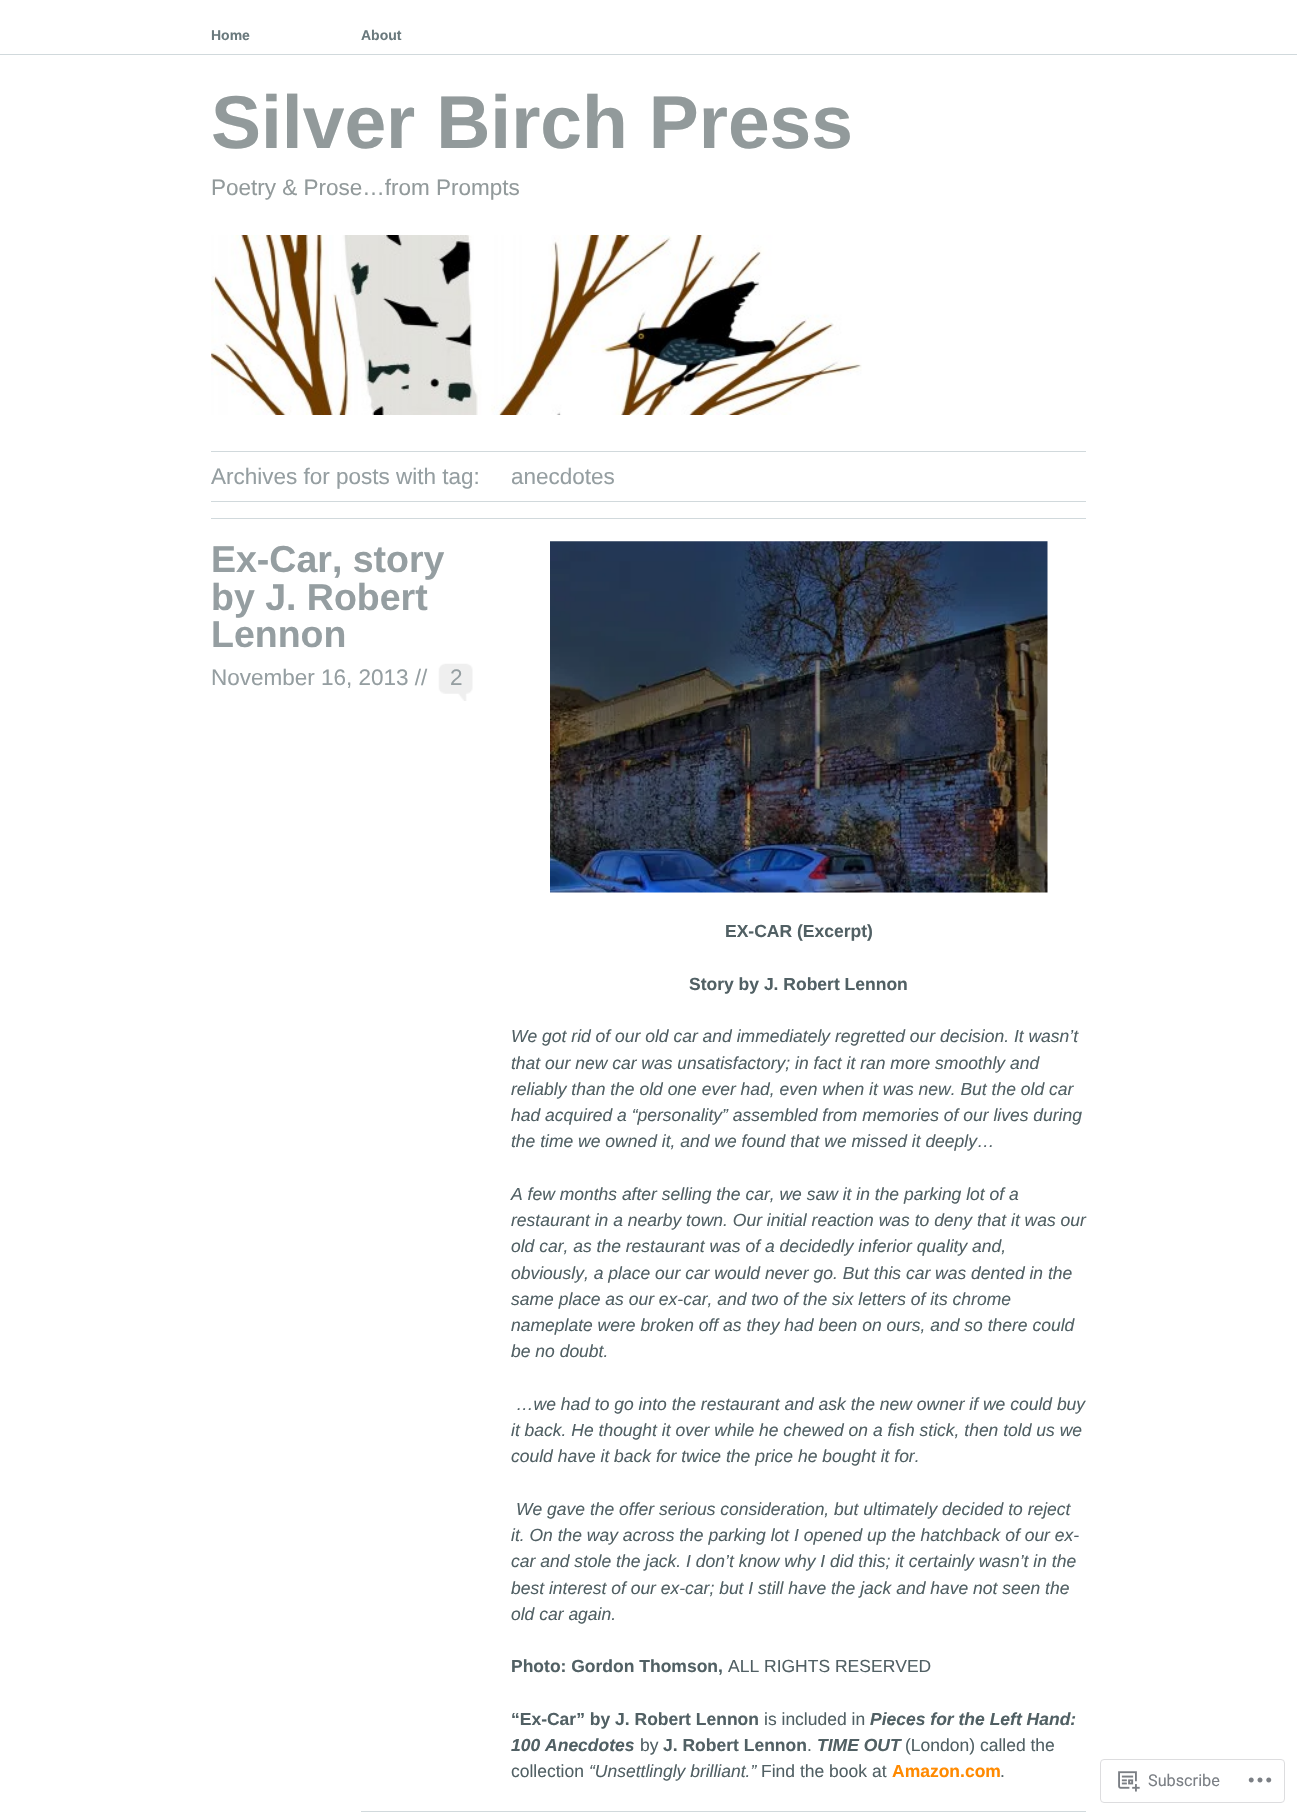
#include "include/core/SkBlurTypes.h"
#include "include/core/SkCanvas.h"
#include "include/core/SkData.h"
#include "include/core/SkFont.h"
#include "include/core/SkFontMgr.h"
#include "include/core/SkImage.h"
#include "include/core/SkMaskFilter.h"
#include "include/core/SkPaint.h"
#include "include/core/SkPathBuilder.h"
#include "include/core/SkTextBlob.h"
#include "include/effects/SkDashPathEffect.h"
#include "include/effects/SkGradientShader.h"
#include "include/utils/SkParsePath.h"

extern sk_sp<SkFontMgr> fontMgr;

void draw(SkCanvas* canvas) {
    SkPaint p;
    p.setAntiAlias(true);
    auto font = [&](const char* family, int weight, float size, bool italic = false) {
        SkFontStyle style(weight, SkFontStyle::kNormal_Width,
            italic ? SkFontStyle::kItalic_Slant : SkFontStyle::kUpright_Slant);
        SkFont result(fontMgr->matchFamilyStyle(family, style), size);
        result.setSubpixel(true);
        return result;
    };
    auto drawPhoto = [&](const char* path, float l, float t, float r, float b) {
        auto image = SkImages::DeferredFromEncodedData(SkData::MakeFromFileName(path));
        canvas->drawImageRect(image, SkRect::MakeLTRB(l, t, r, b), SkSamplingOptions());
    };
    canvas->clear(0xFFFFFFFF);
    p.setColor(0xFFD1D9DC);
    canvas->drawRect(SkRect::MakeLTRB(0, 54, 1297, 55), p);
    auto font1 = font("Liberation Sans", 700, 14);
    p.setColor(0xFF6A797D);
    canvas->drawString("Home", 211, 40, font1, p);
    canvas->drawString("About", 361, 40, font1, p);
    auto font2 = font("Liberation Sans", 700, 75);
    p.setColor(0xFF929A9B);
    canvas->drawString("Silver Birch Press", 211, 148, font2, p);
    auto font3 = font("Liberation Sans", 400, 22.5f);
    canvas->drawString("Poetry & Prose…from Prompts", 211, 195, font3, p);
    drawPhoto("media/1.png", 211, 235, 862, 415);
    p.setColor(0xFFD1D9DC);
    canvas->drawRect(SkRect::MakeLTRB(211, 451, 1086, 452), p);
    p.setColor(0xFF959EA1);
    canvas->drawString("Archives for posts with tag:", 211, 484, font3, p);
    canvas->drawString("anecdotes", 511, 484, font3, p);
    p.setColor(0xFFD1D9DC);
    canvas->drawRect(SkRect::MakeLTRB(211, 501, 1086, 502), p);
    canvas->drawRect(SkRect::MakeLTRB(211, 518, 1086, 519), p);
    auto font4 = font("Liberation Sans", 700, 37.5f);
    p.setColor(0xFF959EA1);
    {
        const struct { const char* s; float x, y; } items[] = {
            {"Ex-Car, story", 211, 572},
            {"by J. Robert", 211, 610},
            {"Lennon", 211, 647},
        };
        for (auto [s, x, y] : items) {
            canvas->drawString(s, x, y, font4, p);
        }
    }
    canvas->drawString("November 16, 2013 //", 211, 685, font3, p);
    drawPhoto("media/2.png", 438, 663, 473, 701);
    canvas->drawString("2", 450, 685, font3, p);
    drawPhoto("media/3.png", 550, 541, 1048, 893);
    auto font5 = font("Liberation Sans", 700, 17.5f);
    p.setColor(0xFF516064);
    canvas->drawString("EX-CAR (Excerpt)", 725, 937, font5, p);
    canvas->drawString("Story by J. Robert Lennon", 689, 990, font5, p);
    auto font6 = font("Liberation Sans", 400, 17.5f, true);
    {
        const struct { const char* s; float x, y; } items[] = {
            {"We got rid of our old car and immediately regretted our decision. It wasn’t", 511, 1042},
            {"that our new car was unsatisfactory; in fact it ran more smoothly and", 511, 1069},
            {"reliably than the old one ever had, even when it was new. But the old car", 511, 1095},
            {"had acquired a “personality” assembled from memories of our lives during", 511, 1121},
            {"the time we owned it, and we found that we missed it deeply…", 511, 1147},
            {"A few months after selling the car, we saw it in the parking lot of a", 511, 1200},
            {"restaurant in a nearby town. Our initial reaction was to deny that it was our", 511, 1226},
            {"old car, as the restaurant was of a decidedly inferior quality and,", 511, 1252},
            {"obviously, a place our car would never go. But this car was dented in the", 511, 1279},
            {"same place as our ex-car, and two of the six letters of its chrome", 511, 1305},
            {"nameplate were broken off as they had been on ours, and so there could", 511, 1331},
            {"be no doubt.", 511, 1357},
            {"…we had to go into the restaurant and ask the new owner if we could buy", 516, 1410},
            {"it back. He thought it over while he chewed on a fish stick, then told us we", 511, 1436},
            {"could have it back for twice the price he bought it for.", 511, 1462},
            {"We gave the offer serious consideration, but ultimately decided to reject", 516, 1515},
            {"it. On the way across the parking lot I opened up the hatchback of our ex-", 511, 1541},
            {"car and stole the jack. I don’t know why I did this; it certainly wasn’t in the", 511, 1567},
            {"best interest of our ex-car; but I still have the jack and have not seen the", 511, 1594},
            {"old car again.", 511, 1620},
        };
        for (auto [s, x, y] : items) {
            canvas->drawString(s, x, y, font6, p);
        }
    }
    canvas->drawString("Photo: Gordon Thomson,", 511, 1672, font5, p);
    auto font7 = font("Liberation Sans", 400, 17.5f);
    canvas->drawString("ALL RIGHTS RESERVED", 728, 1672, font7, p);
    canvas->drawString("“Ex-Car” by J. Robert Lennon", 511, 1725, font5, p);
    canvas->drawString("is included in", 764, 1725, font7, p);
    auto font8 = font("Liberation Sans", 700, 17.5f, true);
    canvas->drawString("Pieces for the Left Hand:", 870, 1725, font8, p);
    canvas->drawString("100 Anecdotes", 511, 1751, font8, p);
    canvas->drawString("by", 640, 1751, font7, p);
    canvas->drawString("J. Robert Lennon", 663, 1751, font5, p);
    canvas->drawString(".", 807, 1751, font7, p);
    canvas->drawString("TIME OUT", 817, 1751, font8, p);
    canvas->drawString("(London) called the", 905, 1751, font7, p);
    canvas->drawString("collection", 511, 1777, font7, p);
    canvas->drawString("“Unsettlingly brilliant.”", 589, 1777, font6, p);
    canvas->drawString("Find the book at", 761, 1777, font7, p);
    p.setColor(0xFFFF8A00);
    canvas->drawString("Amazon.com", 892, 1777, font5, p);
    p.setColor(0xFF516064);
    canvas->drawString(".", 1000, 1777, font7, p);
    p.setColor(0xFFD1D9DC);
    canvas->drawRect(SkRect::MakeLTRB(361, 1811, 1086, 1812), p);
    p.setStyle(SkPaint::kStroke_Style);
    p.setStrokeWidth(1);
    p.setColor(0xFFDDDDDF);
    canvas->drawRoundRect(SkRect::MakeLTRB(1100.5f, 1759.5f, 1284.5f, 1802.5f), 3.5f, 3.5f, p);
    drawPhoto("media/4.png", 1118, 1771, 1140, 1792);
    auto font9 = font("Roboto", 400, 16.25f);
    p.setStyle(SkPaint::kFill_Style);
    p.setColor(0xFF7B7F85);
    canvas->drawString("Subscribe", 1148, 1786, font9, p);
    drawPhoto("media/5.png", 1248, 1777, 1272, 1783);
}
